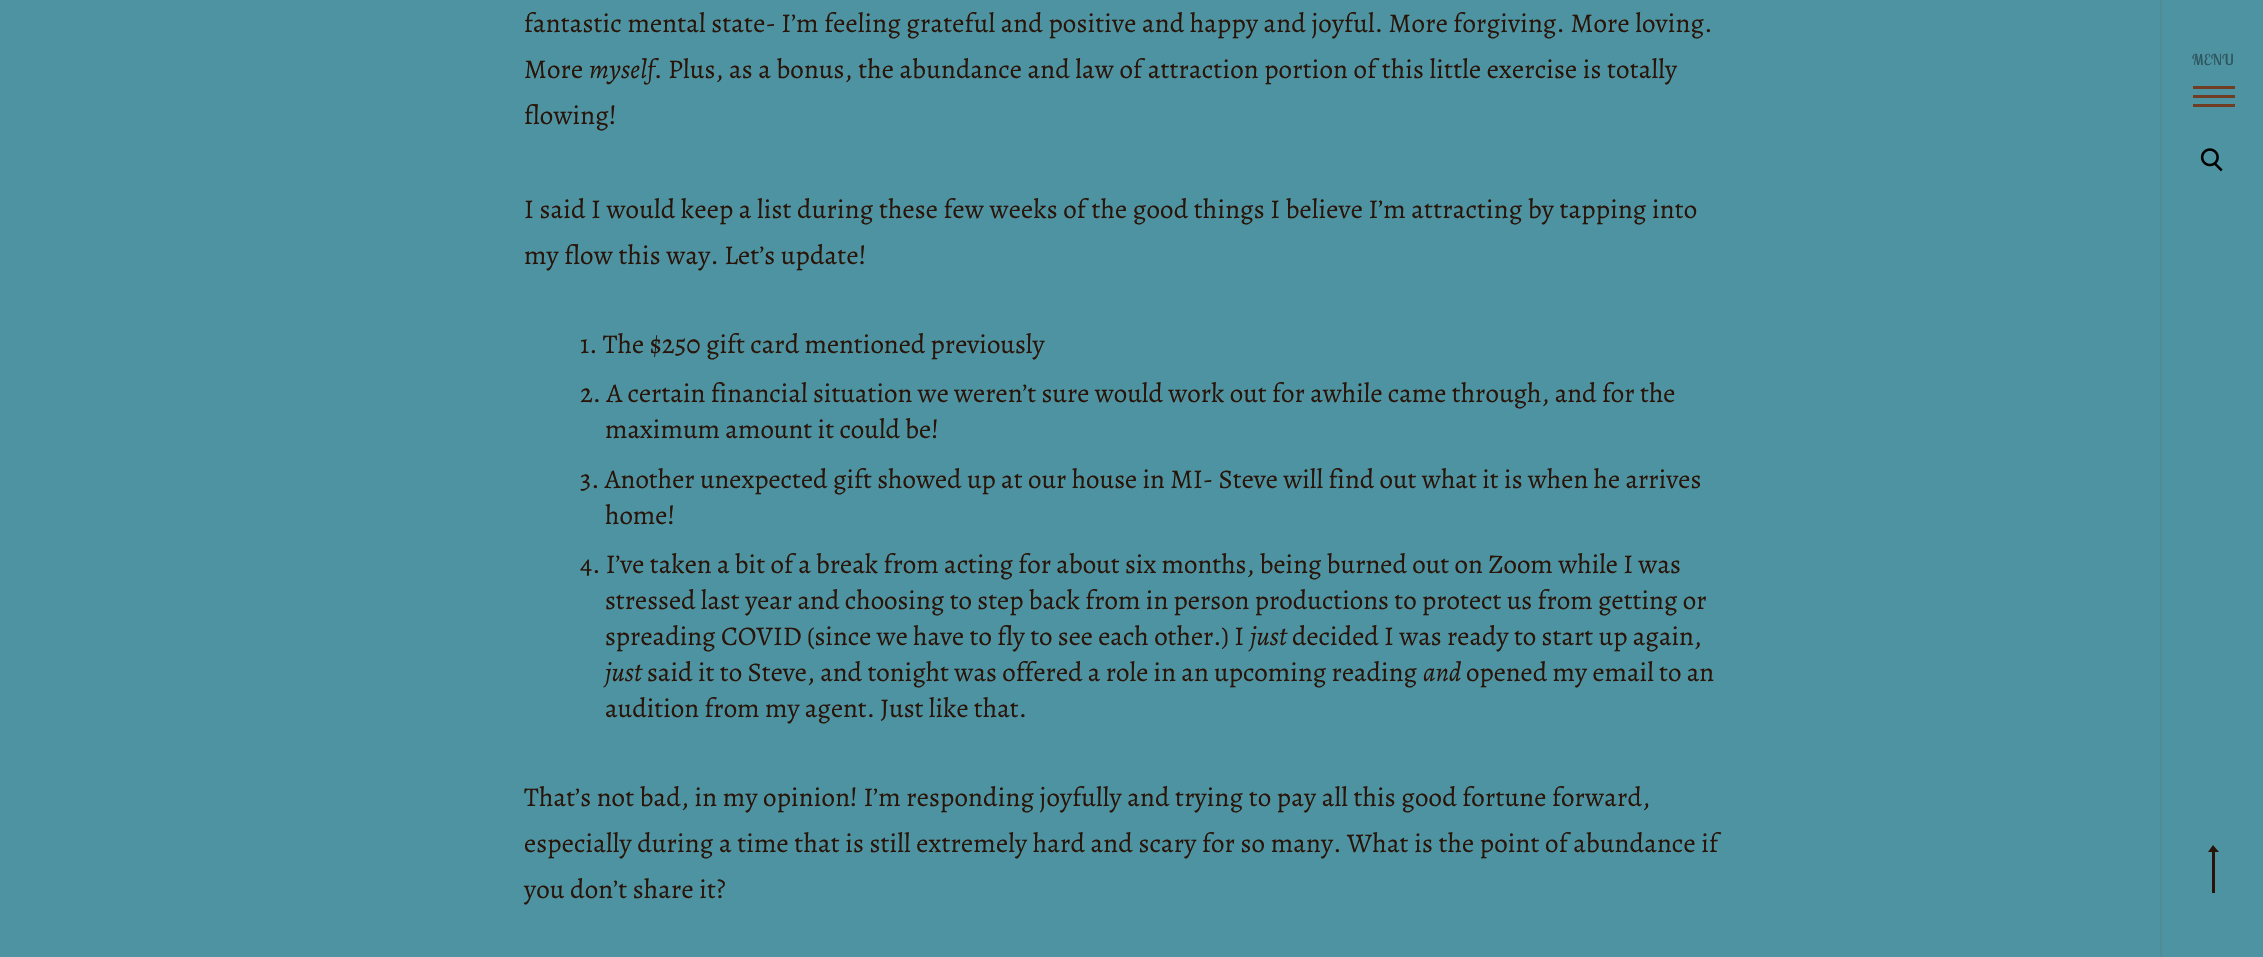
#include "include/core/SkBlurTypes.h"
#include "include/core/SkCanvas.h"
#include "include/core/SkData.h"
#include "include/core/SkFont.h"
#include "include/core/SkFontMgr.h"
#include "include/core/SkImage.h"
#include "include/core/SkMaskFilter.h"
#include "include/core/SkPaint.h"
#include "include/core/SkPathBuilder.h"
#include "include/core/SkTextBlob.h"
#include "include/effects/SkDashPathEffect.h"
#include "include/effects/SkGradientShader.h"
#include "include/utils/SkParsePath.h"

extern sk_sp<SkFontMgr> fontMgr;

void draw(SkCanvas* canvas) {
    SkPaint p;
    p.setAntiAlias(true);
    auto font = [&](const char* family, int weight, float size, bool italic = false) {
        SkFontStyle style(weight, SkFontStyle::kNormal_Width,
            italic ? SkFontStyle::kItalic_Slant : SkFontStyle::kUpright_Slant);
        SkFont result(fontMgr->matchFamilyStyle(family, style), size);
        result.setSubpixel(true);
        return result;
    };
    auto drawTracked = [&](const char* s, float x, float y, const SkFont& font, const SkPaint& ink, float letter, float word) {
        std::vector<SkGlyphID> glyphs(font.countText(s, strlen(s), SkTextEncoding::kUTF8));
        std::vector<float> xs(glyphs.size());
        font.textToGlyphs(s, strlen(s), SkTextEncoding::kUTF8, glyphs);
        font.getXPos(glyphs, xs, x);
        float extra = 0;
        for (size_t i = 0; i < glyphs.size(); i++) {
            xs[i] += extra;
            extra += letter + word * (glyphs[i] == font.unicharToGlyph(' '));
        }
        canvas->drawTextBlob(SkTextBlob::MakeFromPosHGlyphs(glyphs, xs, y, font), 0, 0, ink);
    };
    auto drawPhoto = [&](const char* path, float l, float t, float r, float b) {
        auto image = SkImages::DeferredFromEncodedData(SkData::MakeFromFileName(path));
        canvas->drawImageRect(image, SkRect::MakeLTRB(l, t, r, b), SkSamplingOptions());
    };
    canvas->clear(0xFF4D93A1);
    auto font1 = font("Alegreya", 400, 27);
    p.setColor(0xFF291409);
    drawTracked("fantastic mental state- I’m feeling grateful and positive and happy and joyful. More forgiving. More loving.", 524, 32, font1, p, 0.15f, 0);
    drawTracked("More", 524, 78, font1, p, 0.15f, 0);
    auto font2 = font("Alegreya", 400, 27, true);
    drawTracked("myself", 589, 78, font2, p, 0.15f, 0);
    {
        const struct { const char* s; float x, y; } items[] = {
            {". Plus, as a bonus, the abundance and law of attraction portion of this little exercise is totally", 654, 78},
            {"flowing!", 524, 124},
            {"I said I would keep a list during these few weeks of the good things I believe I’m attracting by tapping into", 524, 218},
            {"my flow this way. Let’s update!", 524, 264},
        };
        for (auto [s, x, y] : items) {
            drawTracked(s, x, y, font1, p, 0.15f, 0);
        }
    }
    {
        const struct { const char* s; float x, y; } items[] = {
            {"1. The $250 gift card mentioned previously", 580, 353},
            {"2. A certain financial situation we weren’t sure would work out for awhile came through, and for the", 580, 402},
            {"maximum amount it could be!", 605, 438},
            {"3. Another unexpected gift showed up at our house in MI- Steve will find out what it is when he arrives", 580, 488},
            {"home!", 605, 524},
            {"4. I’ve taken a bit of a break from acting for about six months, being burned out on Zoom while I was", 580, 573},
            {"stressed last year and choosing to step back from in person productions to protect us from getting or", 605, 609},
            {"spreading COVID (since we have to fly to see each other.) I", 605, 645},
        };
        for (auto [s, x, y] : items) {
            canvas->drawString(s, x, y, font1, p);
        }
    }
    canvas->drawString("just", 1250, 645, font2, p);
    canvas->drawString("decided I was ready to start up again,", 1292, 645, font1, p);
    canvas->drawString("just", 605, 681, font2, p);
    canvas->drawString("said it to Steve, and tonight was offered a role in an upcoming reading", 647, 681, font1, p);
    canvas->drawString("and", 1423, 681, font2, p);
    canvas->drawString("opened my email to an", 1466, 681, font1, p);
    canvas->drawString("audition from my agent. Just like that.", 605, 717, font1, p);
    {
        const struct { const char* s; float x, y; } items[] = {
            {"That’s not bad, in my opinion! I’m responding joyfully and trying to pay all this good fortune forward,", 524, 806},
            {"especially during a time that is still extremely hard and scary for so many. What is the point of abundance if", 524, 852},
            {"you don’t share it?", 524, 898},
        };
        for (auto [s, x, y] : items) {
            drawTracked(s, x, y, font1, p, 0.15f, 0);
        }
    }
    p.setColor(0xFF518D97);
    canvas->drawRect(SkRect::MakeLTRB(2160, 0, 2162, 957), p);
    auto font3 = font("Lobster Two", 400, 15);
    p.setColor(0xFF2E5861);
    drawTracked("MENU", 2192, 65, font3, p, 0.5f, 0);
    {
        const struct { float l, t, r, b; SkColor color; } items[] = {
            {2193, 86, 2235, 89, 0xFF713D22},
            {2193, 95, 2235, 98, 0xFF713D22},
            {2193, 104, 2235, 107, 0xFF713D22},
        };
        for (auto [l, t, r, b, color] : items) {
            p.setColor(color);
            canvas->drawRect(SkRect::MakeLTRB(l, t, r, b), p);
        }
    }
    drawPhoto("media/1.png", 2200, 148, 2223, 172);
    p.setColor(0xFF291409);
    canvas->drawPath(SkPathBuilder().moveTo(2212, 852).lineTo(2208, 852).lineTo(2213, 845).lineTo(2219, 852).lineTo(2215, 852).lineTo(2215, 893).lineTo(2212, 893).close().detach(), p);
}
